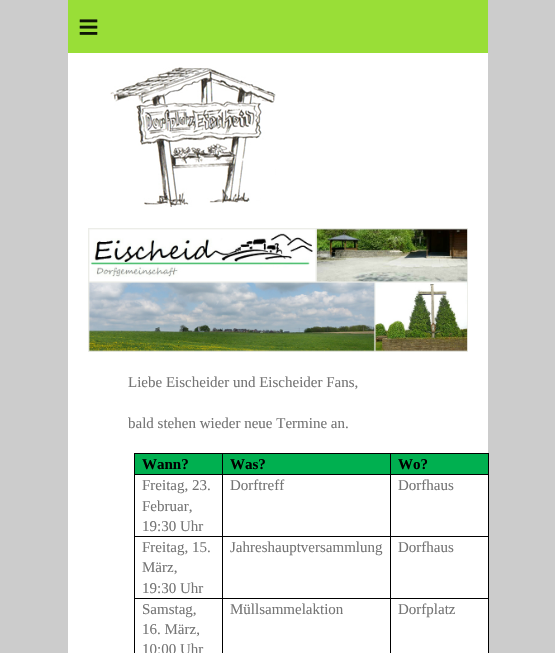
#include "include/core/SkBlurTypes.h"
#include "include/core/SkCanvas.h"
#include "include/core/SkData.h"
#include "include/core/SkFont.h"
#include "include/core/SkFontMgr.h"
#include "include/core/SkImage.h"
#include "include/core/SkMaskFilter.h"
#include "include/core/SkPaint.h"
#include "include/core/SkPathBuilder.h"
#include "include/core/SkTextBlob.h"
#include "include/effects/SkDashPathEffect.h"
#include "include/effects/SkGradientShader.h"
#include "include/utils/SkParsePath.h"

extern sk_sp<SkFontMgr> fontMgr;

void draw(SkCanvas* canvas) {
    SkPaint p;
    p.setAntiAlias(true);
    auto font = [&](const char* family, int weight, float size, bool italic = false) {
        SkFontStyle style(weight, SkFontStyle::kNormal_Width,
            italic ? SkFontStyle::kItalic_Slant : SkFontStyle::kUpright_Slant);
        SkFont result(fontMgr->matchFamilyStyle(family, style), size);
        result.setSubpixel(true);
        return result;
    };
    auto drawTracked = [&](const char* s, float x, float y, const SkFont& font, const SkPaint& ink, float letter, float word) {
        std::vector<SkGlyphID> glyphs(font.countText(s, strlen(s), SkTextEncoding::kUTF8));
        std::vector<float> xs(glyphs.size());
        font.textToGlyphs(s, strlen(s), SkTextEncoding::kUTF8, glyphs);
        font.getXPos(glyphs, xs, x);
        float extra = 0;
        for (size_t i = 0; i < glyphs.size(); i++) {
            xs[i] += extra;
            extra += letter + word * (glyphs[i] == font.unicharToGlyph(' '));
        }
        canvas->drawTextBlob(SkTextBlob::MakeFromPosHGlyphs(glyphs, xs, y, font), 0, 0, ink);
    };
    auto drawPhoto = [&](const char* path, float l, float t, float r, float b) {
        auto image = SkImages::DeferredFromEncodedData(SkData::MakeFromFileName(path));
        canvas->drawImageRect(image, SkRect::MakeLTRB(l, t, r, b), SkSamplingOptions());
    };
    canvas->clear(0xFFCCCCCC);
    p.setColor(0xFF99DE37);
    canvas->drawRect(SkRect::MakeLTRB(68, 0, 488, 53), p);
    auto font1 = font("Liberation Sans", 400, 36);
    p.setColor(0xFF0F1606);
    drawTracked("≡", 78, 39, font1, p, 10, 0);
    p.setColor(0xFFFFFFFF);
    canvas->drawRect(SkRect::MakeLTRB(68, 53, 488, 653), p);
    drawPhoto("media/1.png", 110, 67, 276, 207);
    drawPhoto("media/2.png", 88, 228, 468, 352);
    auto font2 = font("Liberation Serif", 400, 15);
    p.setColor(0xFF757575);
    canvas->drawString("Liebe Eischeider und Eischeider Fans,", 128, 387, font2, p);
    canvas->drawString("bald stehen wieder neue Termine an.", 128, 428, font2, p);
    {
        const struct { float l, t, r, b; SkColor color; } items[] = {
            {135, 454, 222, 474, 0xFF00B050},
            {134, 453, 489, 454, 0xFF000000},
            {488, 474, 489, 653, 0xFF000000},
            {488, 453, 489, 475, 0xFF000000},
            {390, 598, 391, 653, 0xFF000000},
            {390, 598, 489, 599, 0xFF000000},
            {390, 536, 391, 599, 0xFF000000},
            {390, 536, 489, 537, 0xFF000000},
            {390, 474, 391, 537, 0xFF000000},
            {390, 474, 489, 475, 0xFF000000},
            {390, 453, 391, 475, 0xFF000000},
            {222, 598, 223, 653, 0xFF000000},
            {222, 598, 391, 599, 0xFF000000},
            {222, 536, 223, 599, 0xFF000000},
            {222, 536, 391, 537, 0xFF000000},
            {222, 474, 223, 537, 0xFF000000},
            {222, 474, 391, 475, 0xFF000000},
            {222, 453, 223, 475, 0xFF000000},
            {134, 598, 135, 653, 0xFF000000},
            {134, 598, 223, 599, 0xFF000000},
            {134, 536, 135, 599, 0xFF000000},
            {134, 536, 223, 537, 0xFF000000},
            {134, 474, 135, 537, 0xFF000000},
            {134, 474, 223, 475, 0xFF000000},
            {134, 453, 135, 475, 0xFF000000},
        };
        for (auto [l, t, r, b, color] : items) {
            p.setColor(color);
            canvas->drawRect(SkRect::MakeLTRB(l, t, r, b), p);
        }
    }
    auto font3 = font("Liberation Serif", 700, 15);
    canvas->drawString("Wann?", 142, 469, font3, p);
    p.setColor(0xFF00B050);
    canvas->drawRect(SkRect::MakeLTRB(223, 454, 390, 474), p);
    p.setColor(0xFF000000);
    canvas->drawString("Was?", 230, 469, font3, p);
    p.setColor(0xFF00B050);
    canvas->drawRect(SkRect::MakeLTRB(391, 454, 488, 474), p);
    p.setColor(0xFF000000);
    canvas->drawString("Wo?", 398, 469, font3, p);
    p.setColor(0xFF757575);
    {
        const struct { const char* s; float x, y; } items[] = {
            {"Freitag, 23.", 142, 490},
            {"Februar,", 142, 511},
            {"19:30 Uhr", 142, 531},
            {"Dorftreff", 230, 490},
            {"Dorfhaus", 398, 490},
            {"Freitag, 15.", 142, 552},
            {"März,", 142, 572},
            {"19:30 Uhr", 142, 593},
            {"Jahreshauptversammlung", 230, 552},
            {"Dorfhaus", 398, 552},
            {"Samstag,", 142, 614},
            {"16. März,", 142, 634},
            {"10:00 Uhr", 142, 654},
            {"Müllsammelaktion", 230, 614},
            {"Dorfplatz", 398, 614},
        };
        for (auto [s, x, y] : items) {
            canvas->drawString(s, x, y, font2, p);
        }
    }
}
